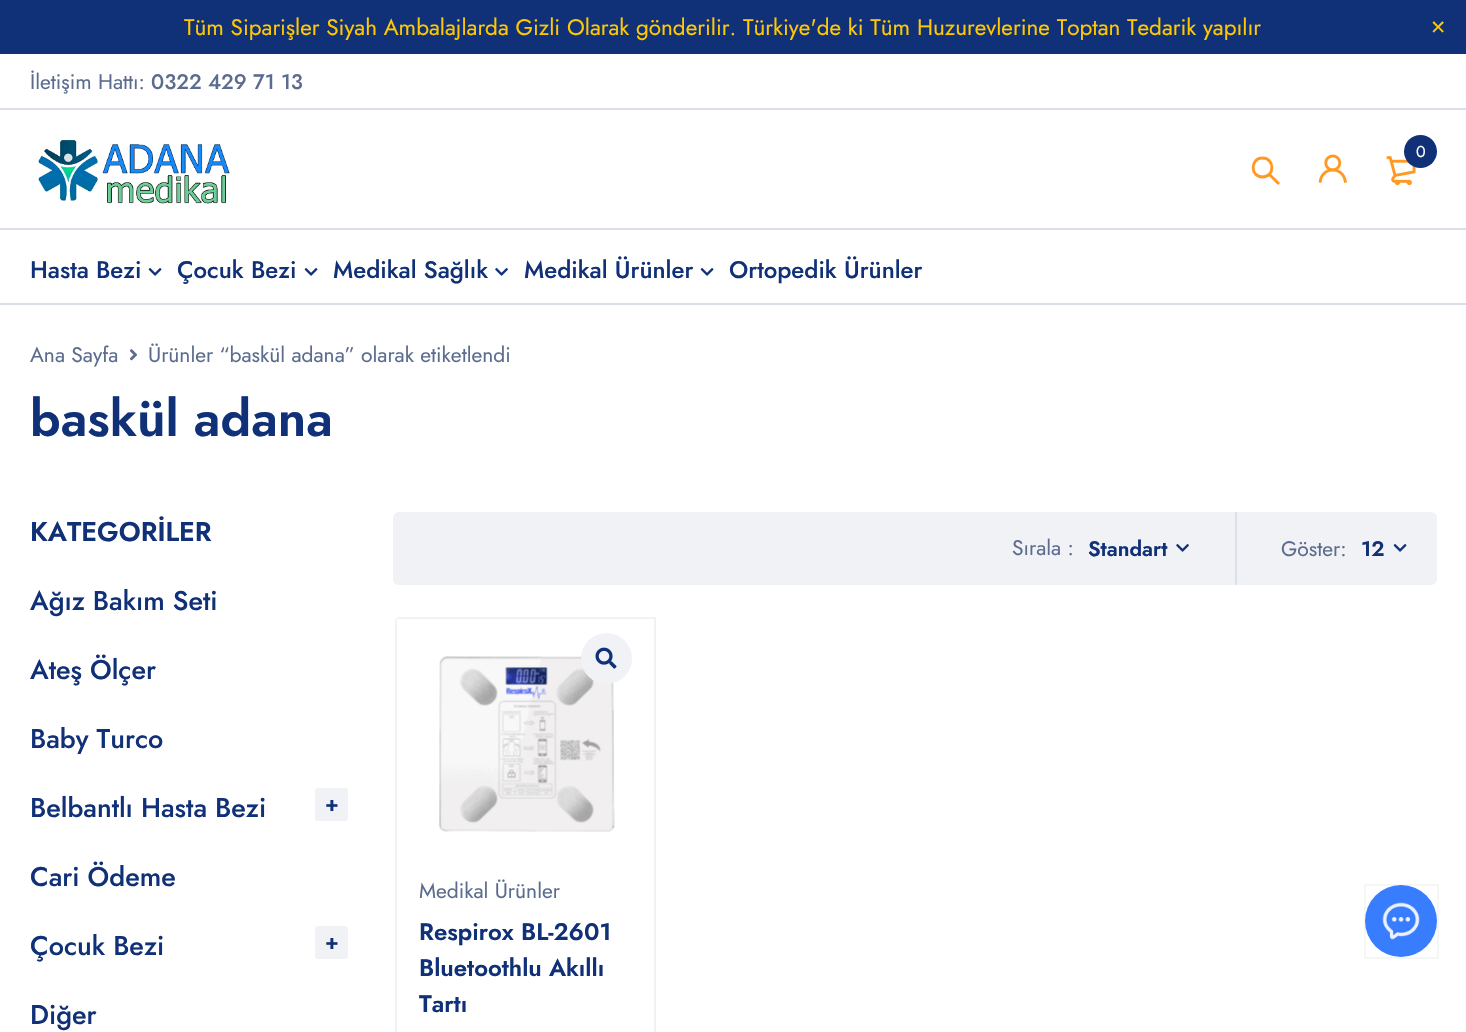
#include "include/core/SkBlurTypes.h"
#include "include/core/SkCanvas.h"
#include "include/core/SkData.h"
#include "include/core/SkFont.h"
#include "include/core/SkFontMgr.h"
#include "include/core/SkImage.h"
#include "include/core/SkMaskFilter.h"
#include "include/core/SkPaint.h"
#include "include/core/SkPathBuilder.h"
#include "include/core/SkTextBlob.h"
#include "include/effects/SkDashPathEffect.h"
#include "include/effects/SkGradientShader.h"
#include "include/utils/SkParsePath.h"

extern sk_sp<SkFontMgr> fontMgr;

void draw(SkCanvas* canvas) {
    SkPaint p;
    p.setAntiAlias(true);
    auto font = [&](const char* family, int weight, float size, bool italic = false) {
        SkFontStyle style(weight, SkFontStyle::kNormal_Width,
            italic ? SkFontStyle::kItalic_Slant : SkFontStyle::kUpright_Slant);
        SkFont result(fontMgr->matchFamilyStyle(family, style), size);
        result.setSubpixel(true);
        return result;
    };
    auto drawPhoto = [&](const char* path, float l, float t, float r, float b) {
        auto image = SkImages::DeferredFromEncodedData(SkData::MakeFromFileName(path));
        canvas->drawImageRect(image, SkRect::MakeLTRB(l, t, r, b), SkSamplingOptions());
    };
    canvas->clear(0xFFFFFFFF);
    p.setColor(0xFF103178);
    canvas->drawRect(SkRect::MakeLTRB(0, 0, 1466, 54), p);
    auto font1 = font("Jost", 400, 22.5f);
    p.setColor(0xFFFFC800);
    canvas->drawString("Tüm Siparişler Siyah Ambalajlarda Gizli Olarak gönderilir. Türkiye'de ki Tüm Huzurevlerine Toptan Tedarik yapılır", 184, 35, font1, p);
    auto font2 = font("Jost", 400, 24);
    canvas->drawString("×", 1431, 33, font2, p);
    p.setColor(0xFFD9DEE8);
    canvas->drawRect(SkRect::MakeLTRB(0, 108, 1466, 110), p);
    auto font3 = font("Jost", 400, 21);
    p.setColor(0xFF5B6C8F);
    canvas->drawString("İletişim Hattı:", 30, 89, font3, p);
    auto font4 = font("Jost", 500, 21);
    canvas->drawString("0322 429 71 13", 151, 89, font4, p);
    p.setColor(0xFFD9DEE8);
    canvas->drawRect(SkRect::MakeLTRB(0, 228, 1466, 230), p);
    drawPhoto("media/1.png", 38, 140, 230, 204);
    drawPhoto("media/2.png", 1386, 156, 1416, 186);
    p.setColor(0xFF103178);
    canvas->drawCircle(1420.5f, 151.5f, 16.5f, p);
    auto font5 = font("Jost", 400, 16);
    p.setColor(0xFFFFFFFF);
    canvas->drawString("0", 1416, 157, font5, p);
    p.setStyle(SkPaint::kStroke_Style);
    p.setStrokeWidth(2.9f);
    p.setColor(0xFFFF9923);
    canvas->drawPath(SkPathBuilder().moveTo(1262.5f, 177).cubicTo(1275, 177, 1275, 158, 1262.5f, 158).cubicTo(1250, 158, 1250, 177, 1262.5f, 177).close().moveTo(1279, 184).lineTo(1269, 174).detach(), p);
    drawPhoto("media/3.png", 1318, 154, 1347, 183);
    p.setStyle(SkPaint::kFill_Style);
    p.setColor(0xFFD9DEE8);
    canvas->drawRect(SkRect::MakeLTRB(0, 303, 1466, 305), p);
    auto font6 = font("Jost", 500, 24);
    p.setColor(0xFF103178);
    canvas->drawString("Hasta Bezi", 30, 278, font6, p);
    drawPhoto("media/4.png", 148, 268, 162, 276);
    canvas->drawString("Çocuk Bezi", 177, 278, font6, p);
    drawPhoto("media/4.png", 304, 268, 318, 276);
    canvas->drawString("Medikal Sağlık", 333, 278, font6, p);
    drawPhoto("media/5.png", 495, 268, 508, 276);
    canvas->drawString("Medikal Ürünler", 524, 278, font6, p);
    drawPhoto("media/4.png", 700, 268, 714, 276);
    canvas->drawString("Ortopedik Ürünler", 729, 278, font6, p);
    p.setColor(0xFF5B6C8F);
    canvas->drawString("Ana Sayfa", 30, 362, font3, p);
    drawPhoto("media/6.png", 129, 349, 138, 361);
    canvas->drawString("Ürünler “baskül adana” olarak etiketlendi", 148, 362, font3, p);
    auto font7 = font("Jost", 600, 51);
    p.setColor(0xFF103178);
    canvas->drawString("baskül adana", 30, 436, font7, p);
    auto font8 = font("Jost", 600, 27);
    canvas->drawString("KATEGORİLER", 30, 541, font8, p);
    auto font9 = font("Jost", 500, 27);
    {
        const struct { const char* s; float x, y; } items[] = {
            {"Ağız Bakım Seti", 30, 610},
            {"Ateş Ölçer", 30, 679},
            {"Baby Turco", 30, 748},
            {"Belbantlı Hasta Bezi", 30, 817},
        };
        for (auto [s, x, y] : items) {
            canvas->drawString(s, x, y, font9, p);
        }
    }
    p.setColor(0xFFF0F2F5);
    canvas->drawRoundRect(SkRect::MakeLTRB(315, 788, 348, 821), 3, 3, p);
    auto font10 = font("Jost", 600, 21);
    p.setColor(0xFF103178);
    canvas->drawString("+", 325, 811, font10, p);
    canvas->drawString("Cari Ödeme", 30, 886, font9, p);
    canvas->drawString("Çocuk Bezi", 30, 955, font9, p);
    p.setColor(0xFFF0F2F5);
    canvas->drawRoundRect(SkRect::MakeLTRB(315, 926, 348, 959), 3, 3, p);
    p.setColor(0xFF103178);
    canvas->drawString("+", 325, 949, font10, p);
    canvas->drawString("Diğer", 30, 1024, font9, p);
    p.setColor(0xFFF0F2F5);
    canvas->drawRoundRect(SkRect::MakeLTRB(393, 512, 1437, 585), 6, 6, p);
    p.setColor(0xFF5B6C8F);
    canvas->drawString("Sırala :", 1012, 555, font3, p);
    p.setColor(0xFF103178);
    canvas->drawString("Standart", 1088, 556, font10, p);
    drawPhoto("media/7.png", 1176, 544, 1189, 552);
    p.setColor(0xFFDADFE9);
    canvas->drawRect(SkRect::MakeLTRB(1235, 512, 1237, 585), p);
    p.setColor(0xFF5B6C8F);
    canvas->drawString("Göster:", 1281, 556, font3, p);
    p.setColor(0xFF103178);
    canvas->drawString("12", 1361, 556, font10, p);
    drawPhoto("media/8.png", 1393, 544, 1407, 552);
    p.setColor(0xFFF0F2F5);
    canvas->drawPath(SkPathBuilder(SkPathFillType::kEvenOdd).moveTo(400, 617).cubicTo(397, 617, 395, 619, 395, 622).lineTo(395, 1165).cubicTo(395, 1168, 397, 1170, 400, 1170).lineTo(656, 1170).lineTo(656, 617).close().moveTo(397, 619).lineTo(397, 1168).lineTo(654, 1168).lineTo(654, 619).close().detach(), p);
    drawPhoto("media/10.png", 439, 656, 615, 832);
    canvas->drawCircle(606.5f, 658.5f, 25.5f, p);
    drawPhoto("media/9.png", 595, 647, 617, 669);
    p.setColor(0xFF5B6C8F);
    canvas->drawString("Medikal Ürünler", 419, 898, font3, p);
    auto font11 = font("Jost", 600, 24);
    p.setColor(0xFF103178);
    {
        const struct { const char* s; float x, y; } items[] = {
            {"Respirox BL-2601", 419, 940},
            {"Bluetoothlu Akıllı", 419, 976},
            {"Tartı", 419, 1012},
        };
        for (auto [s, x, y] : items) {
            canvas->drawString(s, x, y, font11, p);
        }
    }
    p.setStyle(SkPaint::kStroke_Style);
    p.setStrokeWidth(2);
    p.setColor(0x0A161A1E);
    canvas->drawRect(SkRect::MakeLTRB(1365, 885, 1438, 958), p);
    p.setStyle(SkPaint::kFill_Style);
    p.setColor(0xFF397DFF);
    canvas->drawCircle(1401, 921, 36, p);
    drawPhoto("media/11.png", 1382, 902, 1420, 940);
}
